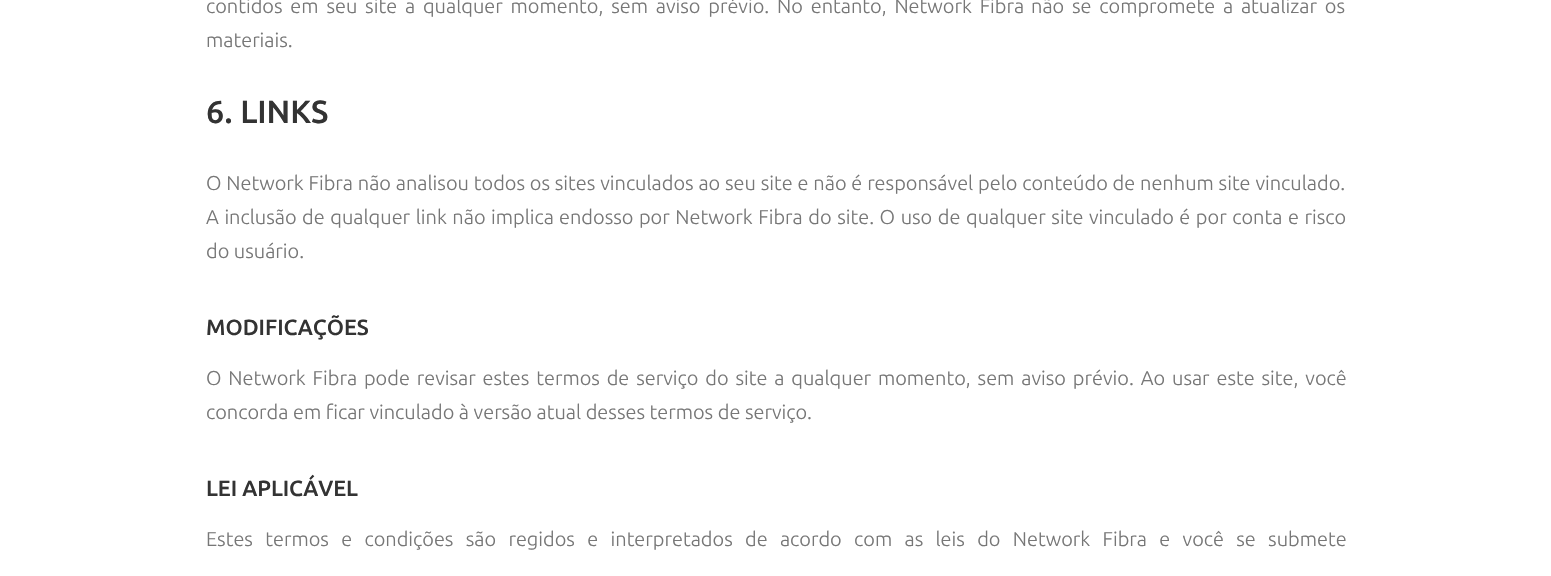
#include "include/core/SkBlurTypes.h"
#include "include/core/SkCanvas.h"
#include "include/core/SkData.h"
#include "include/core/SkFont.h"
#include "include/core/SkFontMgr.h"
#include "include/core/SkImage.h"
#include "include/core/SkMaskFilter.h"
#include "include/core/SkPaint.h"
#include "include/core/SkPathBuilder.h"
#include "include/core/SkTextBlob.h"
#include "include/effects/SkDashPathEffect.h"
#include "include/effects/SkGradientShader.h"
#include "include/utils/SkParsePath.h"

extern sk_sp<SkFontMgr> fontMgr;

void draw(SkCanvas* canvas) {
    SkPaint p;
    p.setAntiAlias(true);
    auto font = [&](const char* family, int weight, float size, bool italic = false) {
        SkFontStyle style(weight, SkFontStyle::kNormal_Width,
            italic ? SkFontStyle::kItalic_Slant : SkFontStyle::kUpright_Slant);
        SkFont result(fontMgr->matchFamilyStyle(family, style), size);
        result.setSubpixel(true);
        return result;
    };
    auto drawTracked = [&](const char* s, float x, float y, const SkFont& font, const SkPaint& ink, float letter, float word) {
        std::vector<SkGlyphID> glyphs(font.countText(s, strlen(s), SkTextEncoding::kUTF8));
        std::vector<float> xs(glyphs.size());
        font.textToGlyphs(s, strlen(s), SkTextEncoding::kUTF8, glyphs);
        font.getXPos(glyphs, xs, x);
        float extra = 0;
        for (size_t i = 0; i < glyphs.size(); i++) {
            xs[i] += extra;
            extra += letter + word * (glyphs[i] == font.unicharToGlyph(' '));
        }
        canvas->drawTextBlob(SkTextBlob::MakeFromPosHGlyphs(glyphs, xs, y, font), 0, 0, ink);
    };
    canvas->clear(0xFFFFFFFF);
    auto font1 = font("Ubuntu", 300, 20);
    p.setColor(0xFF777777);
    drawTracked("contidos em seu site a qualquer momento, sem aviso prévio. No entanto, Network Fibra", 206, 13, font1, p, 0, 3.25f);
    drawTracked("não se compromete a atualizar os", 1031, 13, font1, p, 0, 3.25f);
    canvas->drawString("materiais.", 206, 47, font1, p);
    auto font2 = font("Ubuntu", 500, 32);
    p.setColor(0xFF333333);
    canvas->drawString("6. LINKS", 206, 123, font2, p);
    p.setColor(0xFF777777);
    drawTracked("O Network Fibra não analisou todos os sites vinculados ao seu site e não é responsável pelo conteúdo de nenhum site vinculado.", 206, 190, font1, p, 0, 0.25f);
    drawTracked("A inclusão de qualquer link não implica", 206, 224, font1, p, 0, 1);
    drawTracked("endosso por Network Fibra do site. O uso de qualquer site vinculado é por conta e risco", 559, 224, font1, p, 0, 1);
    canvas->drawString("do usuário.", 206, 258, font1, p);
    auto font3 = font("Ubuntu", 500, 22);
    p.setColor(0xFF333333);
    canvas->drawString("MODIFICAÇÕES", 206, 335, font3, p);
    p.setColor(0xFF777777);
    drawTracked("O Network Fibra pode revisar estes termos de serviço do site a qualquer momento, sem aviso prévio. Ao usar este site, você", 206, 385, font1, p, 0, 2.3f);
    canvas->drawString("concorda em ficar vinculado à versão atual desses termos de serviço.", 206, 419, font1, p);
    p.setColor(0xFF333333);
    canvas->drawString("LEI APLICÁVEL", 206, 496, font3, p);
    p.setColor(0xFF777777);
    drawTracked("Estes termos e condições são regidos e interpretados de acordo com as leis do Network Fibra e você se submete", 206, 546, font1, p, 0, 7.75f);
}
